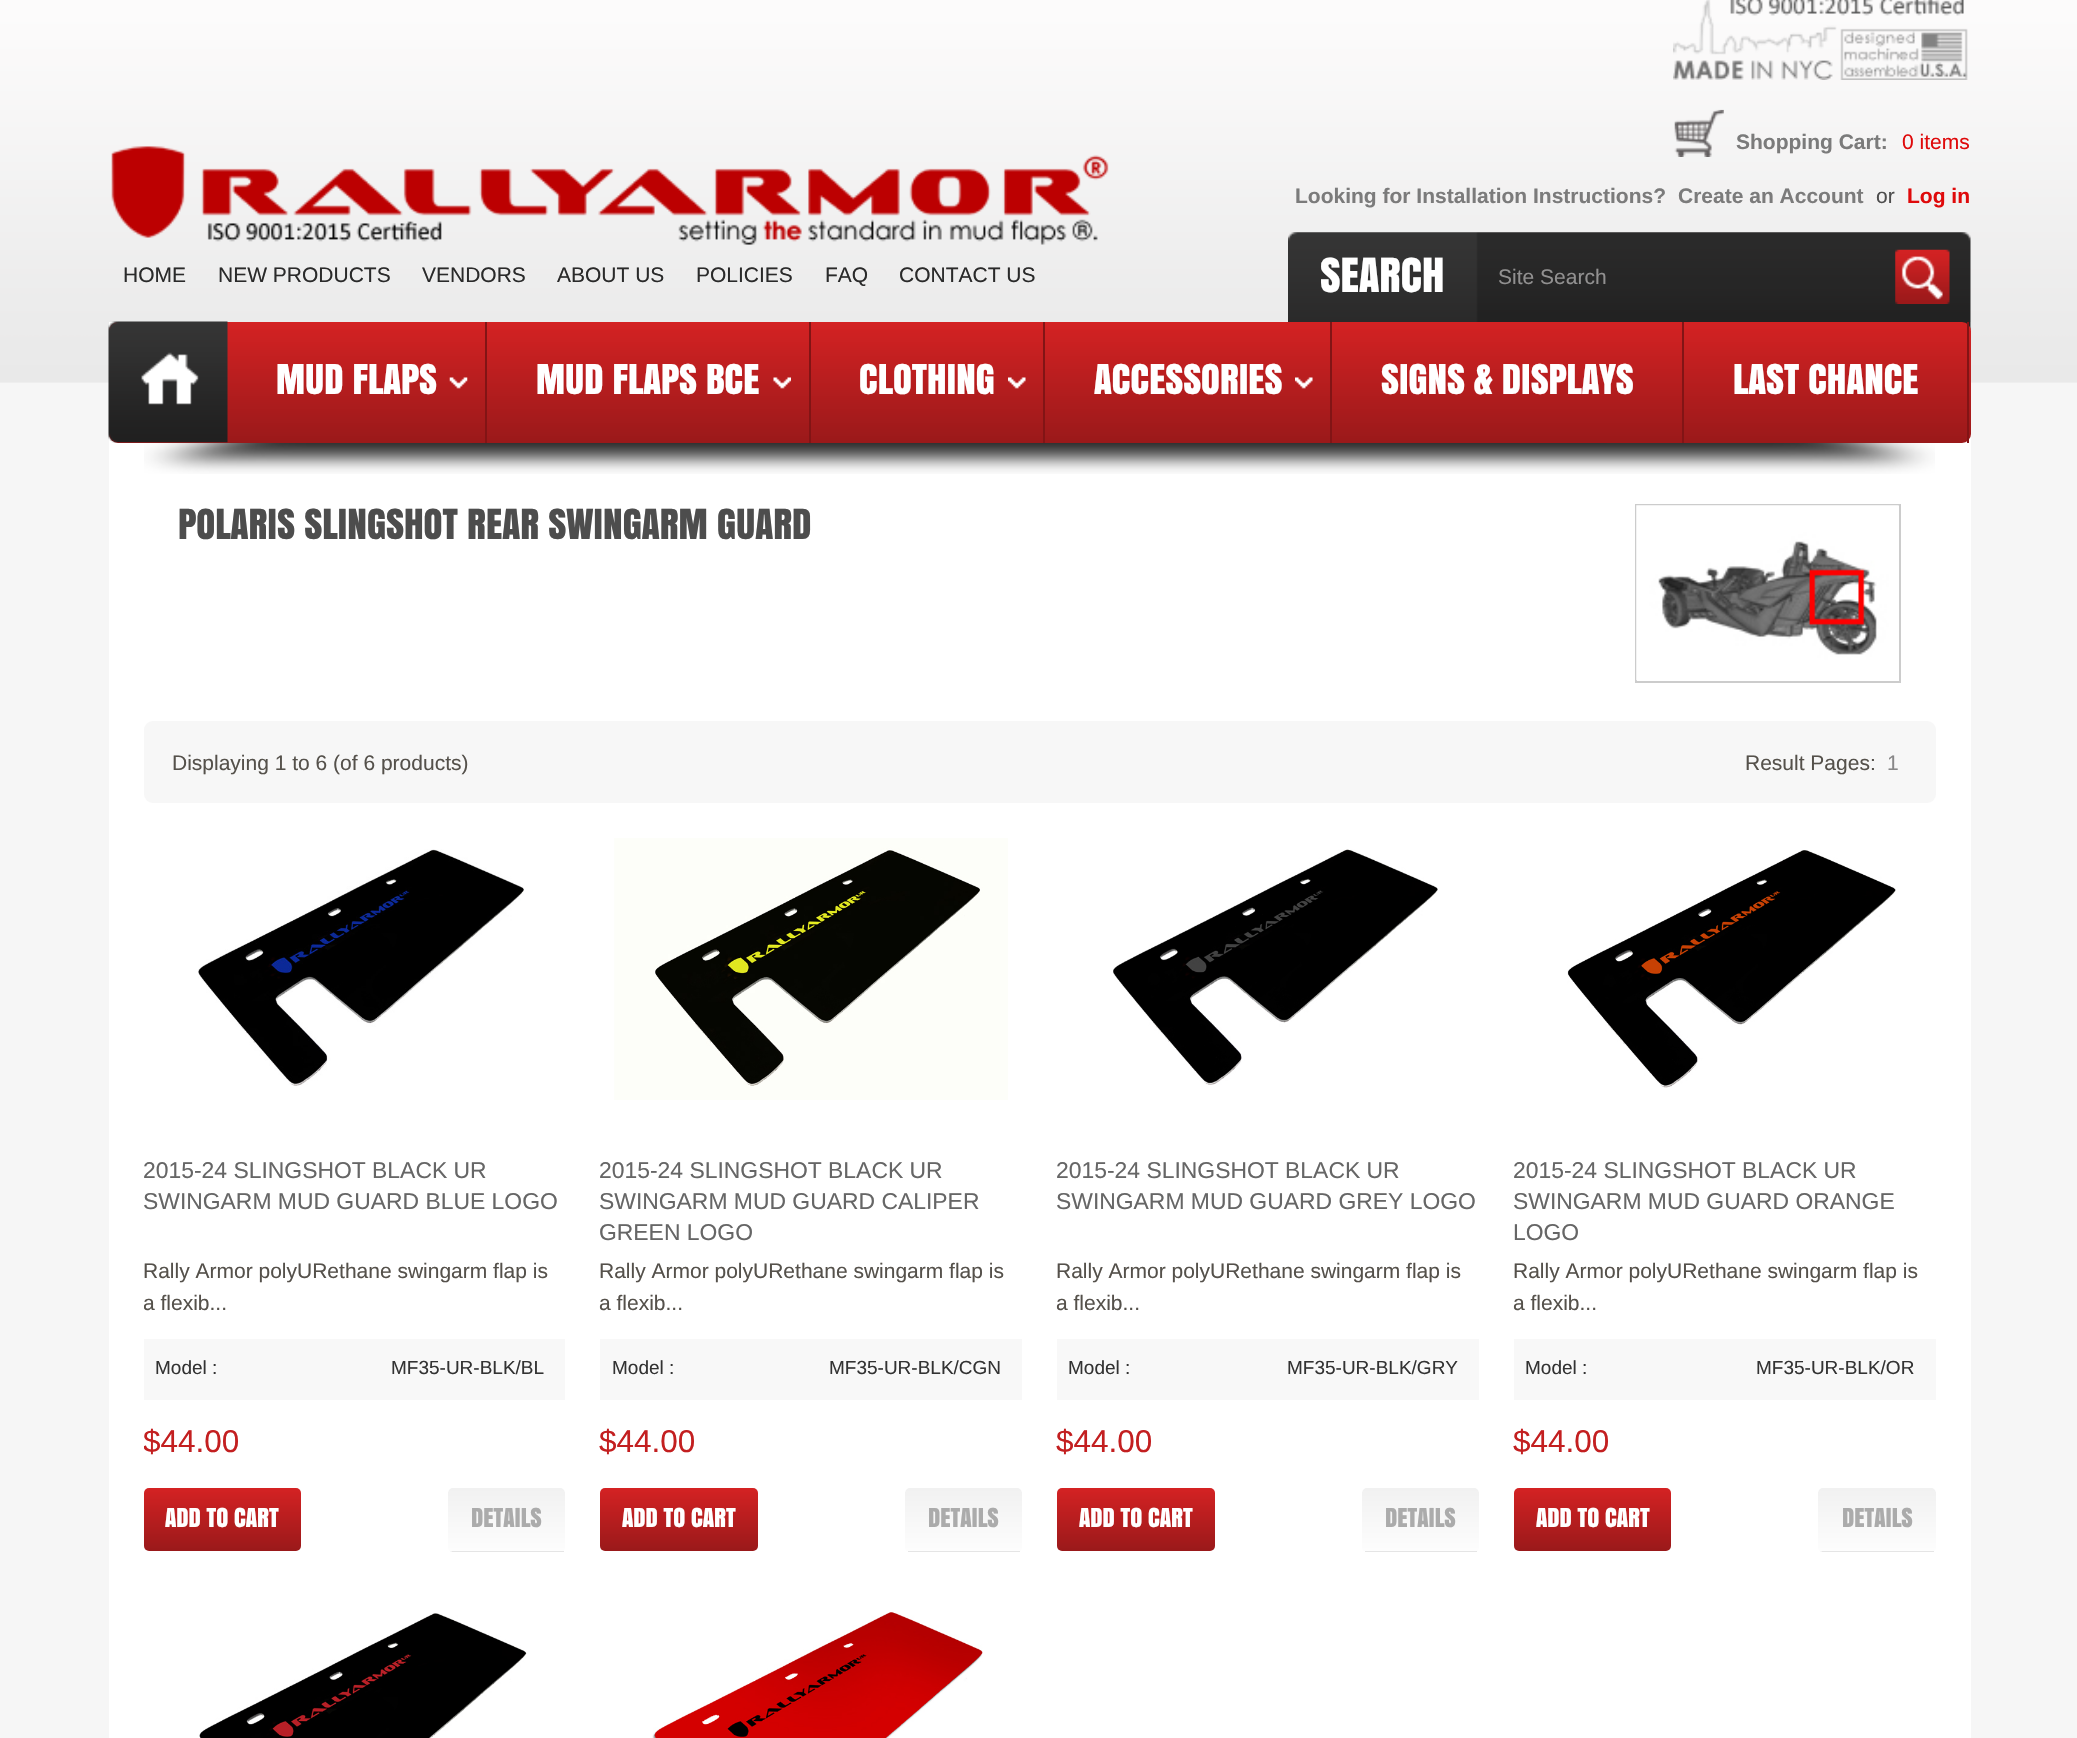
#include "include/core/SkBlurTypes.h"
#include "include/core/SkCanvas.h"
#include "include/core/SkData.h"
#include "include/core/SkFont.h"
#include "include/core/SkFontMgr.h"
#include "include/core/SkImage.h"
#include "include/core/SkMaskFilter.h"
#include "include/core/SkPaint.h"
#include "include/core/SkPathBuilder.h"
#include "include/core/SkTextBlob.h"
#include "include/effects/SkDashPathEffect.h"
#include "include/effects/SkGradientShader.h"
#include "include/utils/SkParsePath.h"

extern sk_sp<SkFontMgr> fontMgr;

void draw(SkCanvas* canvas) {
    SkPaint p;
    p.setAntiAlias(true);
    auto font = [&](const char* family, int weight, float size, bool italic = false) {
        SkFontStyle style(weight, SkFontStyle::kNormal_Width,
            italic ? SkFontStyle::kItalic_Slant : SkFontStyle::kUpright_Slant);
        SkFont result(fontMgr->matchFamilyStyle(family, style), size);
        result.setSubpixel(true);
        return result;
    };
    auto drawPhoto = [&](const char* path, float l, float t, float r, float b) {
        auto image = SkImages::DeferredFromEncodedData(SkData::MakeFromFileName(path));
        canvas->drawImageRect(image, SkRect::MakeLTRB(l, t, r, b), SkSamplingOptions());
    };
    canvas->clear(0xFFF6F6F6);
    drawPhoto("media/1.png", 0, 0, 2077, 383);
    drawPhoto("media/2.png", 1673, 0, 1968, 80);
    drawPhoto("media/3.png", 1674, 109, 1724, 157);
    auto font1 = font("Liberation Sans", 700, 21);
    p.setColor(0xFF7B7B7B);
    canvas->drawString("Shopping Cart:", 1736, 149, font1, p);
    auto font2 = font("Liberation Sans", 400, 21);
    p.setColor(0xFFDF0A0B);
    canvas->drawString("0 items", 1902, 149, font2, p);
    drawPhoto("media/4.png", 111, 146, 1109, 245);
    p.setColor(0xFF7B7B7B);
    canvas->drawString("Looking for Installation Instructions?", 1295, 203, font1, p);
    canvas->drawString("Create an Account", 1678, 203, font1, p);
    p.setColor(0xFF4D4D4D);
    canvas->drawString("or", 1876, 203, font2, p);
    p.setColor(0xFFDF0A0B);
    canvas->drawString("Log in", 1907, 203, font1, p);
    p.setColor(0xFF2A2A2A);
    {
        const struct { const char* s; float x, y; } items[] = {
            {"HOME", 123, 282},
            {"NEW PRODUCTS", 218, 282},
            {"VENDORS", 422, 282},
            {"ABOUT US", 557, 282},
            {"POLICIES", 696, 282},
            {"FAQ", 825, 282},
            {"CONTACT US", 899, 282},
        };
        for (auto [s, x, y] : items) {
            canvas->drawString(s, x, y, font2, p);
        }
    }
    p.setColor(0xFFFFFFFF);
    canvas->drawRect(SkRect::MakeLTRB(109, 322, 1971, 1738), p);
    drawPhoto("media/5.png", 1288, 232, 1971, 331);
    auto font3 = font("Anton", 400, 44);
    canvas->drawString("SEARCH", 1320, 292, font3, p);
    p.setColor(0xFF919090);
    canvas->drawString("Site Search", 1498, 284, font2, p);
    drawPhoto("media/6.png", 1895, 249, 1950, 304);
    drawPhoto("media/7.png", 144, 443, 1935, 474);
    {
        const SkColor colors[] = {0xFFD42223, 0xFF9A191A};
        const float stops[] = {0, 1};
        const SkPoint ends[] = {{1040, 322}, {1040, 443}};
        p.setShader(SkGradientShader::MakeLinear(ends, colors, stops, 2, SkTileMode::kClamp));
        p.setAlpha(255);
    }
    canvas->drawRoundRect(SkRect::MakeLTRB(109, 322, 1971, 443), 9, 9, p);
    drawPhoto("media/8.png", 108, 321, 228, 443);
    p.setShader(nullptr);
    p.setColor(0xFF821415);
    canvas->drawRect(SkRect::MakeLTRB(485, 322, 487, 443), p);
    auto font4 = font("Anton", 400, 38.5f);
    p.setColor(0xFFFFFFFF);
    canvas->drawString("MUD FLAPS", 276, 394, font4, p);
    drawPhoto("media/9.png", 449, 377, 468, 389);
    p.setColor(0xFF821415);
    canvas->drawRect(SkRect::MakeLTRB(809, 322, 811, 443), p);
    p.setColor(0xFFFFFFFF);
    canvas->drawString("MUD FLAPS BCE", 536, 394, font4, p);
    drawPhoto("media/10.png", 773, 377, 791, 389);
    p.setColor(0xFF821415);
    canvas->drawRect(SkRect::MakeLTRB(1043, 322, 1045, 443), p);
    p.setColor(0xFFFFFFFF);
    canvas->drawString("CLOTHING", 859, 394, font4, p);
    drawPhoto("media/11.png", 1008, 377, 1026, 389);
    p.setColor(0xFF821415);
    canvas->drawRect(SkRect::MakeLTRB(1330, 322, 1332, 443), p);
    p.setColor(0xFFFFFFFF);
    canvas->drawString("ACCESSORIES", 1094, 394, font4, p);
    drawPhoto("media/11.png", 1295, 377, 1313, 389);
    p.setColor(0xFF821415);
    canvas->drawRect(SkRect::MakeLTRB(1682, 322, 1684, 443), p);
    p.setColor(0xFFFFFFFF);
    canvas->drawString("SIGNS & DISPLAYS", 1381, 394, font4, p);
    p.setColor(0xFF821415);
    canvas->drawRect(SkRect::MakeLTRB(1967, 322, 1969, 443), p);
    p.setColor(0xFFFFFFFF);
    canvas->drawString("LAST CHANCE", 1733, 394, font4, p);
    auto font5 = font("Anton", 400, 38.8f);
    p.setColor(0xFF4D4D4D);
    canvas->drawString("POLARIS SLINGSHOT REAR SWINGARM GUARD", 178, 539, font5, p);
    p.setStyle(SkPaint::kStroke_Style);
    p.setStrokeWidth(2);
    p.setColor(0xFFCCCCCC);
    canvas->drawRect(SkRect::MakeLTRB(1636, 505, 1900, 682), p);
    drawPhoto("media/12.png", 1636, 505, 1899, 681);
    p.setStyle(SkPaint::kFill_Style);
    p.setColor(0xFFF7F7F7);
    canvas->drawRoundRect(SkRect::MakeLTRB(144, 721, 1936, 803), 9, 9, p);
    p.setColor(0xFF55514B);
    canvas->drawString("Displaying 1 to 6 (of 6 products)", 172, 770, font2, p);
    canvas->drawString("Result Pages:", 1745, 770, font2, p);
    p.setColor(0xFF888788);
    canvas->drawString("1", 1887, 770, font2, p);
    drawPhoto("media/13.png", 198, 849, 524, 1086);
    auto font6 = font("Liberation Sans", 400, 22.9f);
    p.setColor(0xFF666666);
    canvas->drawString("2015-24 SLINGSHOT BLACK UR", 143, 1178, font6, p);
    canvas->drawString("SWINGARM MUD GUARD BLUE LOGO", 143, 1209, font6, p);
    p.setColor(0xFF55514B);
    canvas->drawString("Rally Armor polyURethane swingarm flap is", 143, 1278, font2, p);
    canvas->save();
    canvas->clipRect(SkRect::MakeLTRB(144, 1113, 565, 1552));
    canvas->drawString("a flexib...", 143, 1310, font2, p);
    canvas->restore();
    p.setColor(0xFFF8F8F8);
    canvas->drawRect(SkRect::MakeLTRB(144, 1339, 565, 1400), p);
    auto font7 = font("Liberation Sans", 400, 19);
    p.setColor(0xFF333333);
    canvas->drawString("Model :", 155, 1374, font7, p);
    canvas->drawString("MF35-UR-BLK/BL", 391, 1374, font7, p);
    canvas->save();
    canvas->clipRect(SkRect::MakeLTRB(144, 1409, 565, 1470));
    auto font8 = font("Liberation Sans", 400, 31.5f);
    p.setColor(0xFFC31F20);
    canvas->drawString("$44.00", 143, 1452, font8, p);
    canvas->restore();
    {
        const SkColor colors[] = {0xFFD42223, 0xFF9A191A};
        const float stops[] = {0, 1};
        const SkPoint ends[] = {{222, 1488}, {222, 1551}};
        p.setShader(SkGradientShader::MakeLinear(ends, colors, stops, 2, SkTileMode::kClamp));
        p.setAlpha(255);
    }
    canvas->drawRoundRect(SkRect::MakeLTRB(144, 1488, 301, 1551), 5, 5, p);
    auto font9 = font("Anton", 400, 24.5f);
    p.setShader(nullptr);
    p.setColor(0xFFFFFFFF);
    canvas->drawString("ADD TO CART", 165, 1527, font9, p);
    canvas->save();
    canvas->clipPath(SkPathBuilder().moveTo(453, 1488).lineTo(560, 1488).cubicTo(563, 1488, 565, 1490, 565, 1493).lineTo(565, 1547).cubicTo(565, 1550, 563, 1552, 560, 1552).lineTo(453, 1552).cubicTo(450, 1552, 448, 1550, 448, 1547).lineTo(448, 1493).cubicTo(448, 1490, 450, 1488, 453, 1488).close().detach(), true);
    {
        const SkColor colors[] = {0xFFF1F1F1, 0xFFFDFDFD};
        const float stops[] = {0, 1};
        const SkPoint ends[] = {{507, 1488}, {507, 1551}};
        p.setShader(SkGradientShader::MakeLinear(ends, colors, stops, 2, SkTileMode::kClamp));
        p.setAlpha(255);
    }
    canvas->drawPath(SkPathBuilder().moveTo(453, 1488).lineTo(560, 1488).cubicTo(563, 1488, 565, 1490, 565, 1493).lineTo(565, 1551).lineTo(448, 1551).lineTo(448, 1493).cubicTo(448, 1490, 450, 1488, 453, 1488).close().detach(), p);
    {
        const SkColor colors[] = {0xFFF1F1F1, 0xFFFDFDFD};
        const float stops[] = {0, 1};
        const SkPoint ends[] = {{507, 1551}, {507, 1614}};
        p.setShader(SkGradientShader::MakeLinear(ends, colors, stops, 2, SkTileMode::kClamp));
        p.setAlpha(255);
    }
    canvas->drawRect(SkRect::MakeLTRB(448, 1551, 452, 1552), p);
    canvas->restore();
    p.setShader(nullptr);
    p.setColor(0xFFE5E5E5);
    canvas->drawRect(SkRect::MakeLTRB(452, 1551, 564, 1552), p);
    p.setColor(0xFFABABAB);
    canvas->drawString("DETAILS", 471, 1527, font9, p);
    drawPhoto("media/14.png", 614, 838, 1008, 1100);
    p.setColor(0xFF666666);
    {
        const struct { const char* s; float x, y; } items[] = {
            {"2015-24 SLINGSHOT BLACK UR", 599, 1178},
            {"SWINGARM MUD GUARD CALIPER", 599, 1209},
            {"GREEN LOGO", 599, 1240},
        };
        for (auto [s, x, y] : items) {
            canvas->drawString(s, x, y, font6, p);
        }
    }
    p.setColor(0xFF55514B);
    canvas->drawString("Rally Armor polyURethane swingarm flap is", 599, 1278, font2, p);
    canvas->drawString("a flexib...", 599, 1310, font2, p);
    p.setColor(0xFFF8F8F8);
    canvas->drawRect(SkRect::MakeLTRB(600, 1339, 1022, 1400), p);
    p.setColor(0xFF333333);
    canvas->drawString("Model :", 612, 1374, font7, p);
    canvas->drawString("MF35-UR-BLK/CGN", 829, 1374, font7, p);
    p.setColor(0xFFC31F20);
    canvas->drawString("$44.00", 599, 1452, font8, p);
    {
        const SkColor colors[] = {0xFFD42223, 0xFF9A191A};
        const float stops[] = {0, 1};
        const SkPoint ends[] = {{679, 1488}, {679, 1551}};
        p.setShader(SkGradientShader::MakeLinear(ends, colors, stops, 2, SkTileMode::kClamp));
        p.setAlpha(255);
    }
    canvas->drawRoundRect(SkRect::MakeLTRB(600, 1488, 758, 1551), 5, 5, p);
    p.setShader(nullptr);
    p.setColor(0xFFFFFFFF);
    canvas->drawString("ADD TO CART", 622, 1527, font9, p);
    canvas->save();
    canvas->clipPath(SkPathBuilder().moveTo(910, 1488).lineTo(1017, 1488).cubicTo(1020, 1488, 1022, 1490, 1022, 1493).lineTo(1022, 1547).cubicTo(1022, 1550, 1020, 1552, 1017, 1552).lineTo(910, 1552).cubicTo(907, 1552, 905, 1550, 905, 1547).lineTo(905, 1493).cubicTo(905, 1490, 907, 1488, 910, 1488).close().detach(), true);
    {
        const SkColor colors[] = {0xFFF1F1F1, 0xFFFDFDFD};
        const float stops[] = {0, 1};
        const SkPoint ends[] = {{963, 1488}, {963, 1551}};
        p.setShader(SkGradientShader::MakeLinear(ends, colors, stops, 2, SkTileMode::kClamp));
        p.setAlpha(255);
    }
    canvas->drawPath(SkPathBuilder().moveTo(910, 1488).lineTo(1017, 1488).cubicTo(1020, 1488, 1022, 1490, 1022, 1493).lineTo(1022, 1551).lineTo(905, 1551).lineTo(905, 1493).cubicTo(905, 1490, 907, 1488, 910, 1488).close().detach(), p);
    canvas->restore();
    p.setShader(nullptr);
    p.setColor(0xFFE5E5E5);
    canvas->drawRect(SkRect::MakeLTRB(908, 1551, 1020, 1552), p);
    p.setColor(0xFFABABAB);
    canvas->drawString("DETAILS", 928, 1527, font9, p);
    drawPhoto("media/15.png", 1113, 849, 1438, 1085);
    p.setColor(0xFF666666);
    canvas->drawString("2015-24 SLINGSHOT BLACK UR", 1056, 1178, font6, p);
    canvas->drawString("SWINGARM MUD GUARD GREY LOGO", 1056, 1209, font6, p);
    p.setColor(0xFF55514B);
    canvas->drawString("Rally Armor polyURethane swingarm flap is", 1056, 1278, font2, p);
    canvas->drawString("a flexib...", 1056, 1310, font2, p);
    p.setColor(0xFFF8F8F8);
    canvas->drawRect(SkRect::MakeLTRB(1057, 1339, 1479, 1400), p);
    p.setColor(0xFF333333);
    canvas->drawString("Model :", 1068, 1374, font7, p);
    canvas->drawString("MF35-UR-BLK/GRY", 1287, 1374, font7, p);
    p.setColor(0xFFC31F20);
    canvas->drawString("$44.00", 1056, 1452, font8, p);
    {
        const SkColor colors[] = {0xFFD42223, 0xFF9A191A};
        const float stops[] = {0, 1};
        const SkPoint ends[] = {{1136, 1488}, {1136, 1551}};
        p.setShader(SkGradientShader::MakeLinear(ends, colors, stops, 2, SkTileMode::kClamp));
        p.setAlpha(255);
    }
    canvas->drawRoundRect(SkRect::MakeLTRB(1057, 1488, 1215, 1551), 5, 5, p);
    p.setShader(nullptr);
    p.setColor(0xFFFFFFFF);
    canvas->drawString("ADD TO CART", 1079, 1527, font9, p);
    canvas->save();
    canvas->clipPath(SkPathBuilder().moveTo(1367, 1488).lineTo(1474, 1488).cubicTo(1477, 1488, 1479, 1490, 1479, 1493).lineTo(1479, 1547).cubicTo(1479, 1550, 1477, 1552, 1474, 1552).lineTo(1367, 1552).cubicTo(1364, 1552, 1362, 1550, 1362, 1547).lineTo(1362, 1493).cubicTo(1362, 1490, 1364, 1488, 1367, 1488).close().detach(), true);
    {
        const SkColor colors[] = {0xFFF1F1F1, 0xFFFDFDFD};
        const float stops[] = {0, 1};
        const SkPoint ends[] = {{1420, 1488}, {1420, 1551}};
        p.setShader(SkGradientShader::MakeLinear(ends, colors, stops, 2, SkTileMode::kClamp));
        p.setAlpha(255);
    }
    canvas->drawPath(SkPathBuilder().moveTo(1367, 1488).lineTo(1474, 1488).cubicTo(1477, 1488, 1479, 1490, 1479, 1493).lineTo(1479, 1551).lineTo(1362, 1551).lineTo(1362, 1493).cubicTo(1362, 1490, 1364, 1488, 1367, 1488).close().detach(), p);
    canvas->restore();
    p.setShader(nullptr);
    p.setColor(0xFFE5E5E5);
    canvas->drawRect(SkRect::MakeLTRB(1365, 1551, 1477, 1552), p);
    p.setColor(0xFFABABAB);
    canvas->drawString("DETAILS", 1385, 1527, font9, p);
    drawPhoto("media/16.png", 1567, 850, 1896, 1088);
    p.setColor(0xFF666666);
    {
        const struct { const char* s; float x, y; } items[] = {
            {"2015-24 SLINGSHOT BLACK UR", 1513, 1178},
            {"SWINGARM MUD GUARD ORANGE", 1513, 1209},
            {"LOGO", 1513, 1240},
        };
        for (auto [s, x, y] : items) {
            canvas->drawString(s, x, y, font6, p);
        }
    }
    p.setColor(0xFF55514B);
    canvas->drawString("Rally Armor polyURethane swingarm flap is", 1513, 1278, font2, p);
    canvas->drawString("a flexib...", 1513, 1310, font2, p);
    p.setColor(0xFFF8F8F8);
    canvas->drawRect(SkRect::MakeLTRB(1514, 1339, 1936, 1400), p);
    p.setColor(0xFF333333);
    canvas->drawString("Model :", 1525, 1374, font7, p);
    canvas->drawString("MF35-UR-BLK/OR", 1756, 1374, font7, p);
    p.setColor(0xFFC31F20);
    canvas->drawString("$44.00", 1513, 1452, font8, p);
    {
        const SkColor colors[] = {0xFFD42223, 0xFF9A191A};
        const float stops[] = {0, 1};
        const SkPoint ends[] = {{1593, 1488}, {1593, 1551}};
        p.setShader(SkGradientShader::MakeLinear(ends, colors, stops, 2, SkTileMode::kClamp));
        p.setAlpha(255);
    }
    canvas->drawRoundRect(SkRect::MakeLTRB(1514, 1488, 1671, 1551), 5, 5, p);
    p.setShader(nullptr);
    p.setColor(0xFFFFFFFF);
    canvas->drawString("ADD TO CART", 1536, 1527, font9, p);
    canvas->save();
    canvas->clipPath(SkPathBuilder().moveTo(1823, 1488).lineTo(1931, 1488).cubicTo(1934, 1488, 1936, 1490, 1936, 1493).lineTo(1936, 1547).cubicTo(1936, 1550, 1934, 1552, 1931, 1552).lineTo(1823, 1552).cubicTo(1820, 1552, 1818, 1550, 1818, 1547).lineTo(1818, 1493).cubicTo(1818, 1490, 1820, 1488, 1823, 1488).close().detach(), true);
    {
        const SkColor colors[] = {0xFFF1F1F1, 0xFFFDFDFD};
        const float stops[] = {0, 1};
        const SkPoint ends[] = {{1877, 1488}, {1877, 1551}};
        p.setShader(SkGradientShader::MakeLinear(ends, colors, stops, 2, SkTileMode::kClamp));
        p.setAlpha(255);
    }
    canvas->drawPath(SkPathBuilder().moveTo(1823, 1488).lineTo(1931, 1488).cubicTo(1934, 1488, 1936, 1490, 1936, 1493).lineTo(1936, 1551).lineTo(1818, 1551).lineTo(1818, 1493).cubicTo(1818, 1490, 1820, 1488, 1823, 1488).close().detach(), p);
    {
        const SkColor colors[] = {0xFFF1F1F1, 0xFFFDFDFD};
        const float stops[] = {0, 1};
        const SkPoint ends[] = {{1877, 1551}, {1877, 1614}};
        p.setShader(SkGradientShader::MakeLinear(ends, colors, stops, 2, SkTileMode::kClamp));
        p.setAlpha(255);
    }
    canvas->drawRect(SkRect::MakeLTRB(1818, 1551, 1822, 1552), p);
    canvas->restore();
    p.setShader(nullptr);
    p.setColor(0xFFE5E5E5);
    canvas->drawRect(SkRect::MakeLTRB(1822, 1551, 1934, 1552), p);
    p.setColor(0xFFABABAB);
    canvas->drawString("DETAILS", 1842, 1527, font9, p);
    drawPhoto("media/17.png", 199, 1613, 527, 1738);
    drawPhoto("media/18.png", 652, 1612, 983, 1738);
}
